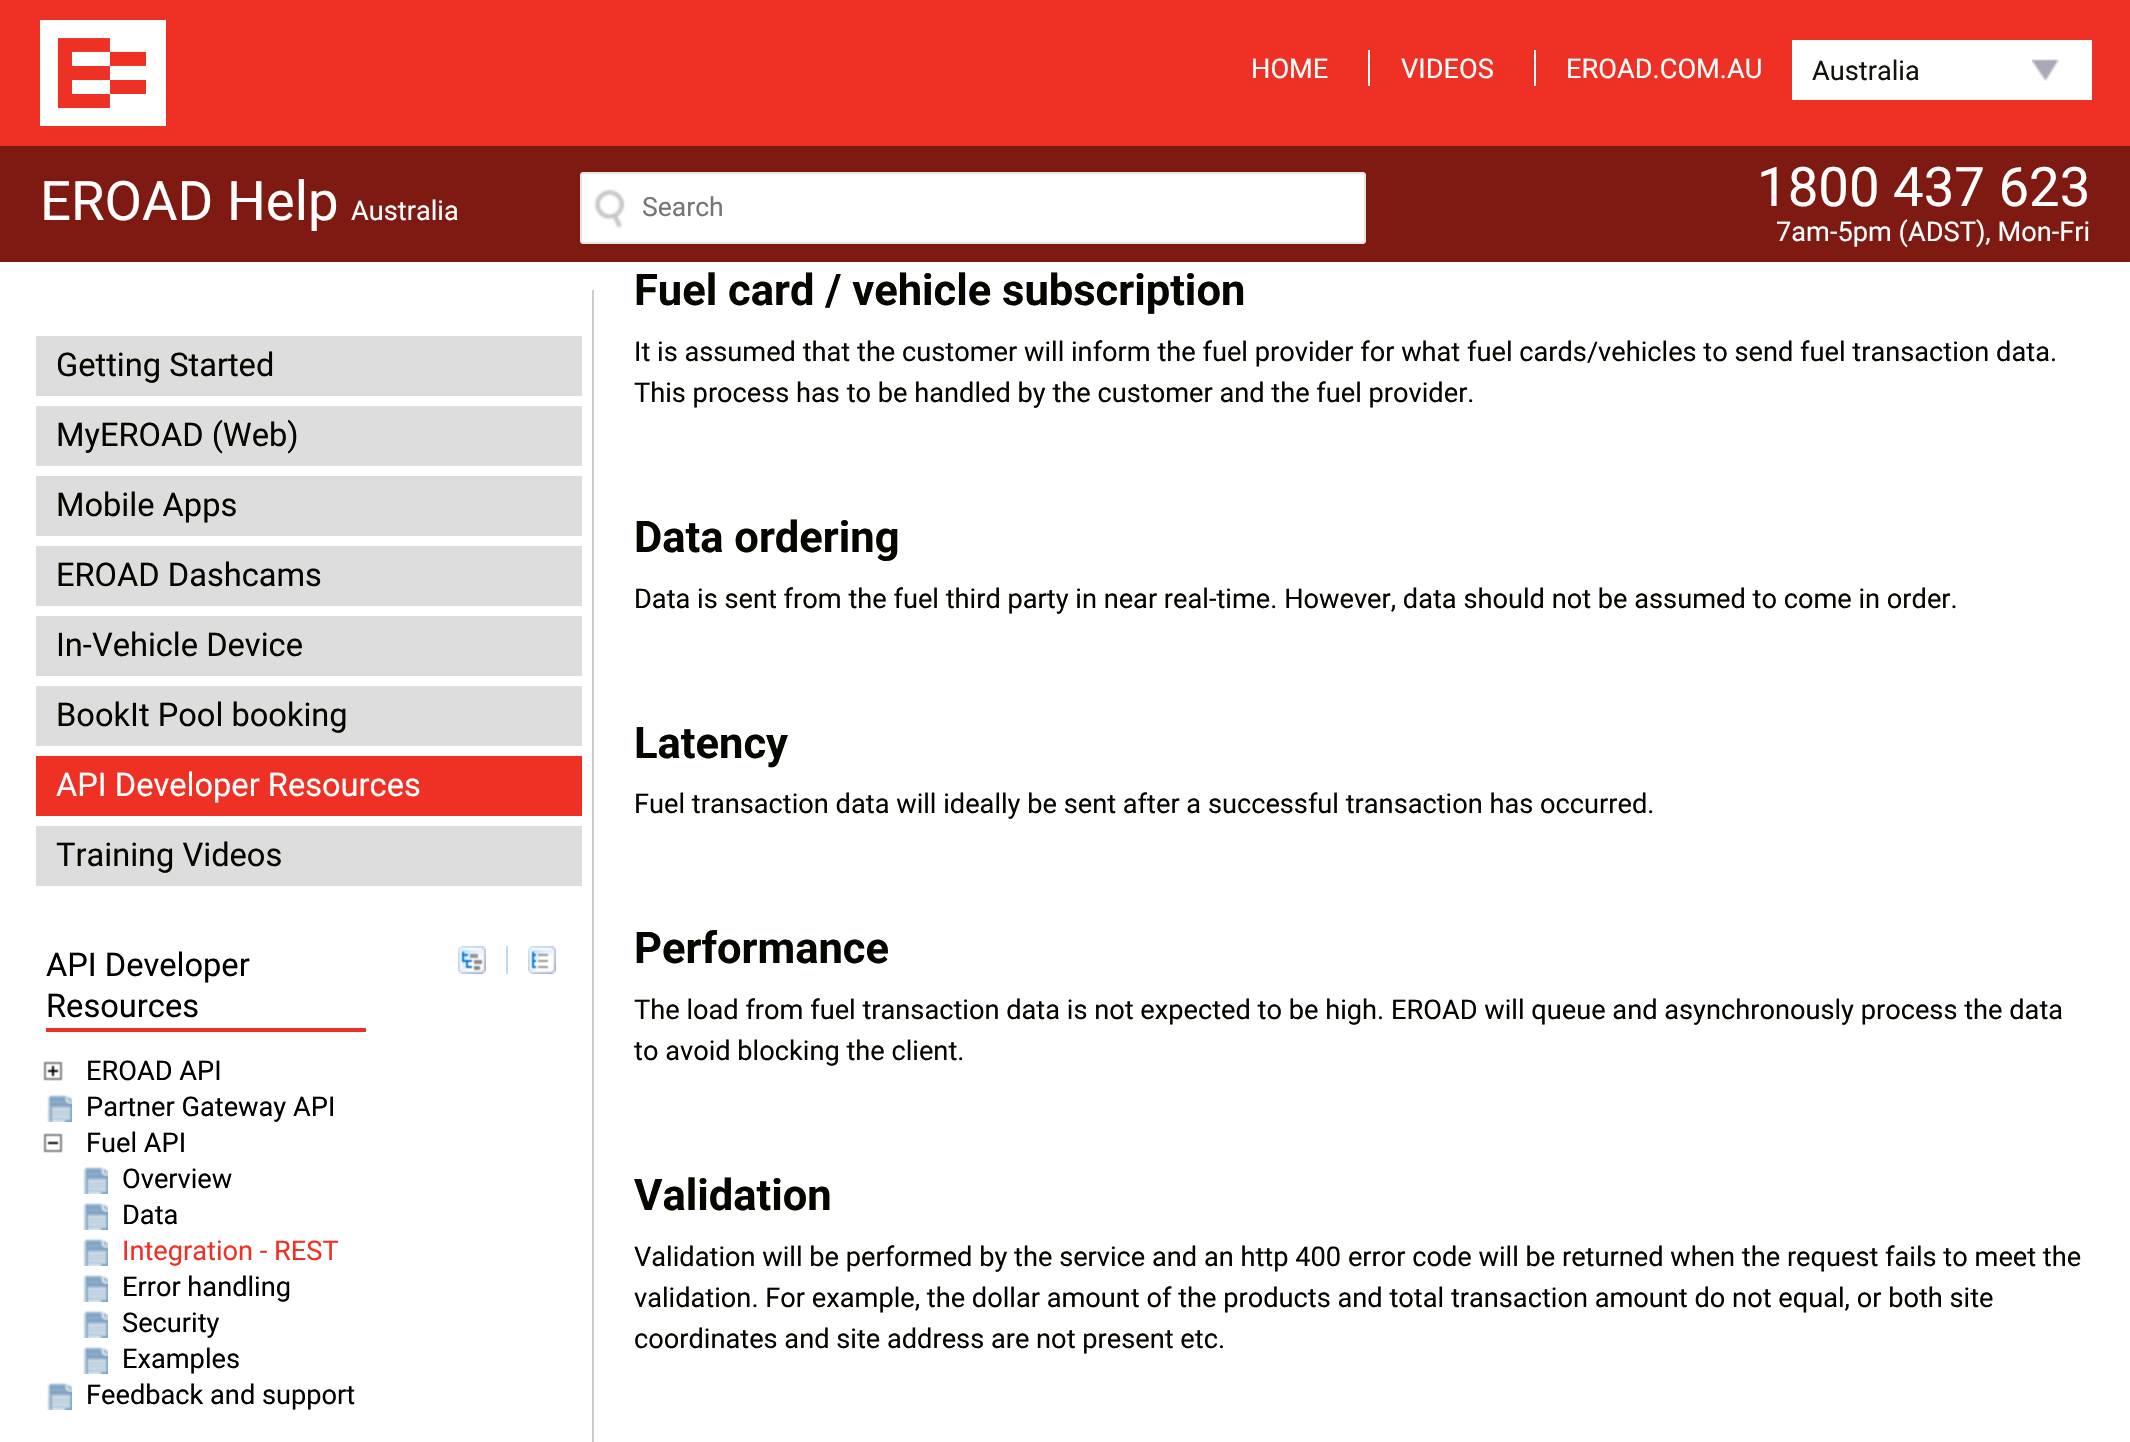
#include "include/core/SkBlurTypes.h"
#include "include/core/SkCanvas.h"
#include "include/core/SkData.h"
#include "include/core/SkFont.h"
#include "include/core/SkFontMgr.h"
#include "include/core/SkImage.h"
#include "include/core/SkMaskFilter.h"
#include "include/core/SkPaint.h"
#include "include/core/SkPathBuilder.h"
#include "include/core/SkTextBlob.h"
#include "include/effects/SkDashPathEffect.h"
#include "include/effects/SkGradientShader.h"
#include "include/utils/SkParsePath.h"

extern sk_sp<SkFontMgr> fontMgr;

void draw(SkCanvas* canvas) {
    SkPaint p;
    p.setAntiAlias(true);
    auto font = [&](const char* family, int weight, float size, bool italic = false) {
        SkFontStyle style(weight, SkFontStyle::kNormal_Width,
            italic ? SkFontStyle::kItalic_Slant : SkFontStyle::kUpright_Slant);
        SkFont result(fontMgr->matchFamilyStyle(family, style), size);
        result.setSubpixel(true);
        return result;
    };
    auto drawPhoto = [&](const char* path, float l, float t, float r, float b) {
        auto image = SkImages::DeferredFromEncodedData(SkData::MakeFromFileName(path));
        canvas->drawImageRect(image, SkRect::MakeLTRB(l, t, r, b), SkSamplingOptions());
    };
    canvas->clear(0xFFFFFFFF);
    p.setColor(0xFFEE3124);
    canvas->drawRect(SkRect::MakeLTRB(0, 0, 2130, 146), p);
    drawPhoto("media/1.png", 40, 20, 166, 126);
    auto font1 = font("Roboto", 400, 27.2f);
    p.setColor(0xFFFFFFFF);
    canvas->drawString("HOME", 1251, 78, font1, p);
    canvas->drawRect(SkRect::MakeLTRB(1368, 50, 1370, 86), p);
    canvas->drawString("VIDEOS", 1401, 78, font1, p);
    canvas->drawRect(SkRect::MakeLTRB(1534, 50, 1536, 86), p);
    canvas->drawString("EROAD.COM.AU", 1566, 78, font1, p);
    canvas->drawRect(SkRect::MakeLTRB(1792, 40, 2092, 100), p);
    p.setColor(0xFF13120D);
    canvas->drawString("Australia", 1812, 80, font1, p);
    drawPhoto("media/2.png", 2032, 59, 2059, 81);
    p.setColor(0xFF7F1A13);
    canvas->drawRect(SkRect::MakeLTRB(0, 146, 2130, 262), p);
    auto font2 = font("Roboto", 400, 54.5f);
    p.setColor(0xFFFFFFFF);
    canvas->drawString("EROAD Help", 40, 220, font2, p);
    canvas->drawString("Australia", 351, 220, font1, p);
    canvas->drawRoundRect(SkRect::MakeLTRB(580, 172, 1366, 244), 4, 4, p);
    drawPhoto("media/3.png", 593, 189, 625, 228);
    p.setStyle(SkPaint::kStroke_Style);
    p.setStrokeWidth(2);
    p.setColor(0xFFE5E5E5);
    canvas->drawRoundRect(SkRect::MakeLTRB(581, 173, 1365, 243), 3, 3, p);
    auto font3 = font("Roboto", 400, 26.5f);
    p.setStyle(SkPaint::kFill_Style);
    p.setColor(0xFF757575);
    canvas->drawString("Search", 642, 216, font3, p);
    p.setColor(0xFFFFFFFF);
    canvas->drawString("1800 437 623", 1757, 206, font2, p);
    canvas->drawString("7am-5pm (ADST), Mon-Fri", 1776, 241, font1, p);
    p.setColor(0xFFCCCCCC);
    canvas->drawRect(SkRect::MakeLTRB(592, 290, 594, 1442), p);
    p.setColor(0xFFDDDDDD);
    canvas->drawRect(SkRect::MakeLTRB(36, 336, 582, 396), p);
    auto font4 = font("Roboto", 400, 32.6f);
    p.setColor(0xFF060500);
    canvas->drawString("Getting Started", 56, 376, font4, p);
    p.setColor(0xFFDDDDDD);
    canvas->drawRect(SkRect::MakeLTRB(36, 406, 582, 466), p);
    p.setColor(0xFF060500);
    canvas->drawString("MyEROAD (Web)", 56, 446, font4, p);
    p.setColor(0xFFDDDDDD);
    canvas->drawRect(SkRect::MakeLTRB(36, 476, 582, 536), p);
    p.setColor(0xFF060500);
    canvas->drawString("Mobile Apps", 56, 516, font4, p);
    p.setColor(0xFFDDDDDD);
    canvas->drawRect(SkRect::MakeLTRB(36, 546, 582, 606), p);
    p.setColor(0xFF060500);
    canvas->drawString("EROAD Dashcams", 56, 586, font4, p);
    p.setColor(0xFFDDDDDD);
    canvas->drawRect(SkRect::MakeLTRB(36, 616, 582, 676), p);
    p.setColor(0xFF060500);
    canvas->drawString("In-Vehicle Device", 56, 656, font4, p);
    p.setColor(0xFFDDDDDD);
    canvas->drawRect(SkRect::MakeLTRB(36, 686, 582, 746), p);
    p.setColor(0xFF060500);
    canvas->drawString("BookIt Pool booking", 56, 726, font4, p);
    p.setColor(0xFFEE3124);
    canvas->drawRect(SkRect::MakeLTRB(36, 756, 582, 816), p);
    p.setColor(0xFFFFFFFF);
    canvas->drawString("API Developer Resources", 56, 796, font4, p);
    p.setColor(0xFFDDDDDD);
    canvas->drawRect(SkRect::MakeLTRB(36, 826, 582, 886), p);
    p.setColor(0xFF060500);
    canvas->drawString("Training Videos", 56, 866, font4, p);
    p.setColor(0xFFEE3124);
    canvas->drawRect(SkRect::MakeLTRB(46, 1028, 366, 1032), p);
    p.setColor(0xFF000000);
    canvas->drawString("API Developer", 46, 976, font4, p);
    canvas->drawString("Resources", 46, 1017, font4, p);
    p.setColor(0xFFBFD7FD);
    canvas->drawRect(SkRect::MakeLTRB(506, 946, 508, 974), p);
    drawPhoto("media/4.png", 458, 946, 486, 974);
    drawPhoto("media/5.png", 528, 946, 556, 974);
    drawPhoto("media/6.png", 43, 1061, 63, 1081);
    p.setColor(0xFF000000);
    canvas->drawString("EROAD API", 86, 1080, font1, p);
    drawPhoto("media/7.png", 47, 1094, 72, 1122);
    canvas->drawString("Partner Gateway API", 86, 1116, font1, p);
    drawPhoto("media/8.png", 43, 1133, 63, 1153);
    canvas->drawString("Fuel API", 86, 1152, font1, p);
    drawPhoto("media/7.png", 83, 1166, 108, 1194);
    canvas->drawString("Overview", 122, 1188, font1, p);
    drawPhoto("media/7.png", 83, 1202, 108, 1230);
    canvas->drawString("Data", 122, 1224, font1, p);
    drawPhoto("media/7.png", 83, 1238, 108, 1266);
    p.setColor(0xFFEE3124);
    canvas->drawString("Integration - REST", 122, 1260, font1, p);
    drawPhoto("media/7.png", 83, 1274, 108, 1302);
    p.setColor(0xFF000000);
    canvas->drawString("Error handling", 122, 1296, font1, p);
    drawPhoto("media/7.png", 83, 1310, 108, 1338);
    canvas->drawString("Security", 122, 1332, font1, p);
    drawPhoto("media/7.png", 83, 1346, 108, 1374);
    canvas->drawString("Examples", 122, 1368, font1, p);
    drawPhoto("media/7.png", 47, 1382, 72, 1410);
    canvas->drawString("Feedback and support", 86, 1404, font1, p);
    auto font5 = font("Roboto", 700, 43.5f);
    p.setColor(0xFF060500);
    canvas->drawString("Fuel card / vehicle subscription", 634, 305, font5, p);
    canvas->drawString("It is assumed that the customer will inform the fuel provider for what fuel cards/vehicles to send fuel transaction data.", 634, 361, font1, p);
    canvas->drawString("This process has to be handled by the customer and the fuel provider.", 634, 402, font1, p);
    canvas->drawString("Data ordering", 634, 552, font5, p);
    canvas->drawString("Data is sent from the fuel third party in near real-time. However, data should not be assumed to come in order.", 634, 608, font1, p);
    canvas->drawString("Latency", 634, 758, font5, p);
    canvas->drawString("Fuel transaction data will ideally be sent after a successful transaction has occurred.", 634, 813, font1, p);
    canvas->drawString("Performance", 634, 963, font5, p);
    canvas->drawString("The load from fuel transaction data is not expected to be high. EROAD will queue and asynchronously process the data", 634, 1019, font1, p);
    canvas->drawString("to avoid blocking the client.", 634, 1060, font1, p);
    canvas->drawString("Validation", 634, 1210, font5, p);
    {
        const struct { const char* s; float x, y; } items[] = {
            {"Validation will be performed by the service and an http 400 error code will be returned when the request fails to meet the", 634, 1266},
            {"validation. For example, the dollar amount of the products and total transaction amount do not equal, or both site", 634, 1307},
            {"coordinates and site address are not present etc.", 634, 1348},
        };
        for (auto [s, x, y] : items) {
            canvas->drawString(s, x, y, font1, p);
        }
    }
}
